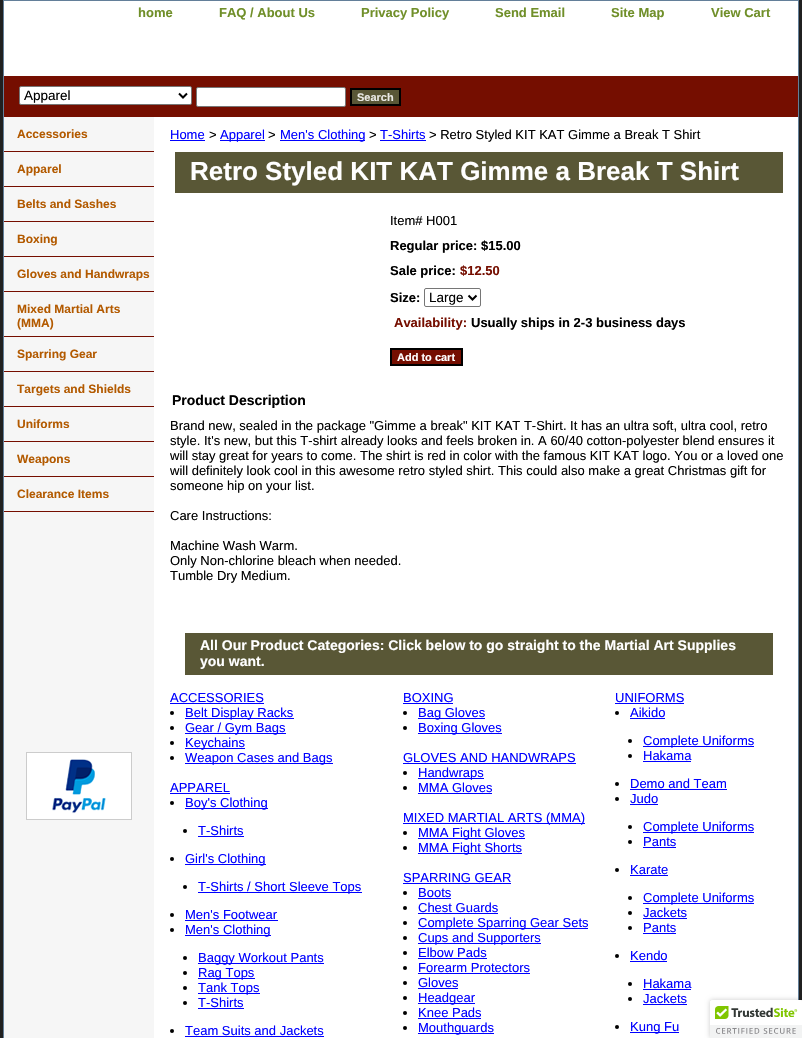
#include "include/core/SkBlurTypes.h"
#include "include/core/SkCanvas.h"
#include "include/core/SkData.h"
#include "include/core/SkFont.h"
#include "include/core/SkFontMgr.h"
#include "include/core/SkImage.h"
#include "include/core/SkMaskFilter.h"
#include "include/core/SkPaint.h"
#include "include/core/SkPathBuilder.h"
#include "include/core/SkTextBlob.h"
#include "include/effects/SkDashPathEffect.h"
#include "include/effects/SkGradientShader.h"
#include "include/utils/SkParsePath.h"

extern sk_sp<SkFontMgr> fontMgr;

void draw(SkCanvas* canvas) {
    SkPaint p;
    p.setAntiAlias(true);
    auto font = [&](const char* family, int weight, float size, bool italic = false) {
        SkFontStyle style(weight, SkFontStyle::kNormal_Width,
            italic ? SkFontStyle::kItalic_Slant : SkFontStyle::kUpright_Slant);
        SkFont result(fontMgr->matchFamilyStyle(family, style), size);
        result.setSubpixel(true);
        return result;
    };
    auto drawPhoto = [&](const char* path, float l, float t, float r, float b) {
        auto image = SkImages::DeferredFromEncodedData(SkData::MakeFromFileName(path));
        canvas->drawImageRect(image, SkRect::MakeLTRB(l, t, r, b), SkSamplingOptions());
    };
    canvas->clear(0xFF202020);
    p.setColor(0xFFFFFFFF);
    canvas->drawRect(SkRect::MakeLTRB(3.5f, 0.5f, 798.5f, 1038.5f), p);
    p.setStyle(SkPaint::kStroke_Style);
    p.setStrokeWidth(1);
    p.setColor(0xFF637F99);
    canvas->drawRect(SkRect::MakeLTRB(3.5f, 0.5f, 798.5f, 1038.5f), p);
    auto font1 = font("Liberation Sans", 700, 13);
    p.setStyle(SkPaint::kFill_Style);
    p.setColor(0xFF708F29);
    {
        const struct { const char* s; float x, y; } items[] = {
            {"home", 138, 17},
            {"FAQ / About Us", 219, 17},
            {"Privacy Policy", 361, 17},
            {"Send Email", 495, 17},
            {"Site Map", 611, 17},
            {"View Cart", 711, 17},
        };
        for (auto [s, x, y] : items) {
            canvas->drawString(s, x, y, font1, p);
        }
    }
    p.setColor(0xFF750E00);
    canvas->drawRect(SkRect::MakeLTRB(4, 76, 798, 117), p);
    p.setColor(0xFFFFFFFF);
    canvas->drawRoundRect(SkRect::MakeLTRB(19.5f, 86.5f, 191.5f, 104.5f), 1.5f, 1.5f, p);
    p.setStyle(SkPaint::kStroke_Style);
    p.setColor(0xFF767676);
    canvas->drawRoundRect(SkRect::MakeLTRB(19.5f, 86.5f, 191.5f, 104.5f), 1.5f, 1.5f, p);
    p.setStrokeWidth(2);
    p.setColor(0xFF000000);
    canvas->drawPath(SkPathBuilder().moveTo(179, 93.5f).lineTo(183, 97.5f).lineTo(187, 93.5f).detach(), p);
    auto font2 = font("Liberation Sans", 400, 13.5f);
    p.setStyle(SkPaint::kFill_Style);
    canvas->drawString("Apparel", 24, 100, font2, p);
    p.setColor(0xFFFFFFFF);
    canvas->drawRoundRect(SkRect::MakeLTRB(196.5f, 87.5f, 345.5f, 106.5f), 1.5f, 1.5f, p);
    p.setStyle(SkPaint::kStroke_Style);
    p.setStrokeWidth(1);
    p.setColor(0xFF767676);
    canvas->drawRoundRect(SkRect::MakeLTRB(196.5f, 87.5f, 345.5f, 106.5f), 1.5f, 1.5f, p);
    p.setStyle(SkPaint::kFill_Style);
    p.setColor(0xFF595736);
    canvas->drawRect(SkRect::MakeLTRB(351, 89, 400, 105), p);
    p.setStyle(SkPaint::kStroke_Style);
    p.setStrokeWidth(2);
    p.setColor(0xFF000000);
    canvas->drawRect(SkRect::MakeLTRB(351, 89, 400, 105), p);
    auto font3 = font("Liberation Sans", 700, 11);
    p.setStyle(SkPaint::kFill_Style);
    p.setColor(0xFFE9E9E4);
    canvas->drawString("Search", 357, 101, font3, p);
    p.setColor(0xFFF6F6F6);
    canvas->drawRect(SkRect::MakeLTRB(4, 117, 154, 1038), p);
    p.setColor(0xFF750E00);
    canvas->drawRect(SkRect::MakeLTRB(4, 151, 154, 152), p);
    auto font4 = font("Liberation Sans", 700, 12);
    p.setColor(0xFFB35A00);
    canvas->drawString("Accessories", 17, 138, font4, p);
    p.setColor(0xFF750E00);
    canvas->drawRect(SkRect::MakeLTRB(4, 186, 154, 187), p);
    p.setColor(0xFFB35A00);
    canvas->drawString("Apparel", 17, 173, font4, p);
    p.setColor(0xFF750E00);
    canvas->drawRect(SkRect::MakeLTRB(4, 221, 154, 222), p);
    p.setColor(0xFFB35A00);
    canvas->drawString("Belts and Sashes", 17, 208, font4, p);
    p.setColor(0xFF750E00);
    canvas->drawRect(SkRect::MakeLTRB(4, 256, 154, 257), p);
    p.setColor(0xFFB35A00);
    canvas->drawString("Boxing", 17, 243, font4, p);
    p.setColor(0xFF750E00);
    canvas->drawRect(SkRect::MakeLTRB(4, 291, 154, 292), p);
    p.setColor(0xFFB35A00);
    canvas->drawString("Gloves and Handwraps", 17, 278, font4, p);
    p.setColor(0xFF750E00);
    canvas->drawRect(SkRect::MakeLTRB(4, 336, 154, 337), p);
    p.setColor(0xFFB35A00);
    canvas->drawString("Mixed Martial Arts", 17, 313, font4, p);
    canvas->drawString("(MMA)", 17, 327, font4, p);
    p.setColor(0xFF750E00);
    canvas->drawRect(SkRect::MakeLTRB(4, 371, 154, 372), p);
    p.setColor(0xFFB35A00);
    canvas->drawString("Sparring Gear", 17, 358, font4, p);
    p.setColor(0xFF750E00);
    canvas->drawRect(SkRect::MakeLTRB(4, 406, 154, 407), p);
    p.setColor(0xFFB35A00);
    canvas->drawString("Targets and Shields", 17, 393, font4, p);
    p.setColor(0xFF750E00);
    canvas->drawRect(SkRect::MakeLTRB(4, 441, 154, 442), p);
    p.setColor(0xFFB35A00);
    canvas->drawString("Uniforms", 17, 428, font4, p);
    p.setColor(0xFF750E00);
    canvas->drawRect(SkRect::MakeLTRB(4, 476, 154, 477), p);
    p.setColor(0xFFB35A00);
    canvas->drawString("Weapons", 17, 463, font4, p);
    p.setColor(0xFF750E00);
    canvas->drawRect(SkRect::MakeLTRB(4, 511, 154, 512), p);
    p.setColor(0xFFB35A00);
    canvas->drawString("Clearance Items", 17, 498, font4, p);
    drawPhoto("media/1.png", 26, 752, 132, 820);
    auto font5 = font("Liberation Sans", 400, 13);
    p.setColor(0xFF0000FF);
    canvas->drawString("Home", 170, 139, font5, p);
    canvas->drawRect(SkRect::MakeLTRB(170, 140, 205, 141), p);
    p.setColor(0xFF000000);
    canvas->drawString(">", 209, 139, font5, p);
    p.setColor(0xFF0000FF);
    canvas->drawRect(SkRect::MakeLTRB(220, 140, 265, 141), p);
    canvas->drawString("Apparel", 220, 139, font5, p);
    p.setColor(0xFF000000);
    canvas->drawString(">", 268, 139, font5, p);
    p.setColor(0xFF0000FF);
    canvas->drawRect(SkRect::MakeLTRB(280, 140, 365, 141), p);
    canvas->drawString("Men's Clothing", 280, 139, font5, p);
    p.setColor(0xFF000000);
    canvas->drawString(">", 369, 139, font5, p);
    p.setColor(0xFF0000FF);
    canvas->drawString("T-Shirts", 380, 139, font5, p);
    canvas->drawRect(SkRect::MakeLTRB(380, 140, 426, 141), p);
    p.setColor(0xFF000000);
    canvas->drawString("> Retro Styled KIT KAT Gimme a Break T Shirt", 429, 139, font5, p);
    p.setColor(0xFF595736);
    canvas->drawRect(SkRect::MakeLTRB(175, 152, 783, 193), p);
    auto font6 = font("Liberation Sans", 700, 26);
    p.setColor(0xFFFFFFFF);
    canvas->drawString("Retro Styled KIT KAT Gimme a Break T Shirt", 190, 180, font6, p);
    p.setColor(0xFF000000);
    canvas->drawString("Item# H001", 390, 225, font5, p);
    canvas->drawString("Regular price: $15.00", 390, 250, font1, p);
    canvas->drawString("Sale price:", 390, 275, font1, p);
    p.setColor(0xFF750E00);
    canvas->drawString("$12.50", 460, 275, font1, p);
    p.setColor(0xFF000000);
    canvas->drawString("Size:", 390, 302, font1, p);
    p.setStyle(SkPaint::kStroke_Style);
    p.setStrokeWidth(1);
    p.setColor(0xFF767676);
    canvas->drawRoundRect(SkRect::MakeLTRB(424.5f, 288.5f, 480.5f, 306.5f), 1.5f, 1.5f, p);
    p.setStrokeWidth(2);
    p.setColor(0xFF000000);
    canvas->drawPath(SkPathBuilder().moveTo(468.5f, 295.5f).lineTo(472.5f, 299.5f).lineTo(476.5f, 295.5f).detach(), p);
    p.setStyle(SkPaint::kFill_Style);
    canvas->drawString("Large", 429, 302, font2, p);
    p.setColor(0xFF750E00);
    canvas->drawString("Availability:", 394, 327, font1, p);
    p.setColor(0xFF000000);
    canvas->drawString("Usually ships in 2-3 business days", 471, 327, font1, p);
    p.setColor(0xFF750E00);
    canvas->drawRect(SkRect::MakeLTRB(391, 349, 462, 365), p);
    p.setStyle(SkPaint::kStroke_Style);
    p.setColor(0xFF000000);
    canvas->drawRect(SkRect::MakeLTRB(391, 349, 462, 365), p);
    p.setStyle(SkPaint::kFill_Style);
    p.setColor(0xFFFFFFFF);
    canvas->drawString("Add to cart", 397, 361, font3, p);
    auto font7 = font("Liberation Sans", 700, 14);
    p.setColor(0xFF000000);
    canvas->drawString("Product Description", 172, 405, font7, p);
    {
        const struct { const char* s; float x, y; } items[] = {
            {"Brand new, sealed in the package \"Gimme a break\" KIT KAT T-Shirt. It has an ultra soft, ultra cool, retro", 170, 430},
            {"style. It's new, but this T-shirt already looks and feels broken in. A 60/40 cotton-polyester blend ensures it", 170, 445},
            {"will stay great for years to come. The shirt is red in color with the famous KIT KAT logo. You or a loved one", 170, 460},
            {"will definitely look cool in this awesome retro styled shirt. This could also make a great Christmas gift for", 170, 475},
            {"someone hip on your list.", 170, 490},
            {"Care Instructions:", 170, 520},
            {"Machine Wash Warm.", 170, 550},
            {"Only Non-chlorine bleach when needed.", 170, 565},
            {"Tumble Dry Medium.", 170, 580},
        };
        for (auto [s, x, y] : items) {
            canvas->drawString(s, x, y, font5, p);
        }
    }
    p.setColor(0xFF595736);
    canvas->drawRect(SkRect::MakeLTRB(185, 633, 773, 675), p);
    p.setColor(0xFFFFFFFF);
    canvas->drawString("All Our Product Categories: Click below to go straight to the Martial Art Supplies", 200, 650, font7, p);
    canvas->drawString("you want.", 200, 666, font7, p);
    p.setColor(0xFF0000FF);
    canvas->drawString("ACCESSORIES", 170, 702, font5, p);
    canvas->drawRect(SkRect::MakeLTRB(170, 703, 264, 704), p);
    p.setColor(0xFF000000);
    canvas->drawCircle(172, 713, 2, p);
    p.setColor(0xFF0000FF);
    canvas->drawRect(SkRect::MakeLTRB(185, 718, 294, 719), p);
    canvas->drawString("Belt Display Racks", 185, 717, font5, p);
    p.setColor(0xFF000000);
    canvas->drawCircle(172, 728, 2, p);
    p.setColor(0xFF0000FF);
    canvas->drawRect(SkRect::MakeLTRB(185, 733, 286, 734), p);
    canvas->drawString("Gear / Gym Bags", 185, 732, font5, p);
    p.setColor(0xFF000000);
    canvas->drawCircle(172, 743, 2, p);
    p.setColor(0xFF0000FF);
    canvas->drawRect(SkRect::MakeLTRB(185, 748, 245, 749), p);
    canvas->drawString("Keychains", 185, 747, font5, p);
    p.setColor(0xFF000000);
    canvas->drawCircle(172, 758, 2, p);
    p.setColor(0xFF0000FF);
    canvas->drawRect(SkRect::MakeLTRB(185, 763, 333, 764), p);
    canvas->drawString("Weapon Cases and Bags", 185, 762, font5, p);
    canvas->drawString("APPAREL", 170, 792, font5, p);
    canvas->drawRect(SkRect::MakeLTRB(170, 793, 230, 794), p);
    p.setColor(0xFF000000);
    canvas->drawCircle(172, 803, 2, p);
    p.setColor(0xFF0000FF);
    canvas->drawRect(SkRect::MakeLTRB(185, 808, 268, 809), p);
    canvas->drawString("Boy's Clothing", 185, 807, font5, p);
    p.setColor(0xFF000000);
    canvas->drawCircle(185, 831, 2, p);
    p.setColor(0xFF0000FF);
    canvas->drawString("T-Shirts", 198, 835, font5, p);
    canvas->drawRect(SkRect::MakeLTRB(198, 836, 244, 837), p);
    p.setColor(0xFF000000);
    canvas->drawCircle(172, 859, 2, p);
    p.setColor(0xFF0000FF);
    canvas->drawRect(SkRect::MakeLTRB(185, 864, 266, 865), p);
    canvas->drawString("Girl's Clothing", 185, 863, font5, p);
    p.setColor(0xFF000000);
    canvas->drawCircle(185, 887, 2, p);
    p.setColor(0xFF0000FF);
    canvas->drawRect(SkRect::MakeLTRB(198, 892, 362, 893), p);
    canvas->drawString("T-Shirts / Short Sleeve Tops", 198, 891, font5, p);
    p.setColor(0xFF000000);
    canvas->drawCircle(172, 915, 2, p);
    p.setColor(0xFF0000FF);
    canvas->drawString("Men's Footwear", 185, 919, font5, p);
    canvas->drawRect(SkRect::MakeLTRB(185, 920, 278, 921), p);
    p.setColor(0xFF000000);
    canvas->drawCircle(172, 930, 2, p);
    p.setColor(0xFF0000FF);
    canvas->drawRect(SkRect::MakeLTRB(185, 935, 271, 936), p);
    canvas->drawString("Men's Clothing", 185, 934, font5, p);
    p.setColor(0xFF000000);
    canvas->drawCircle(185, 958, 2, p);
    p.setColor(0xFF0000FF);
    canvas->drawRect(SkRect::MakeLTRB(198, 963, 324, 964), p);
    canvas->drawString("Baggy Workout Pants", 198, 962, font5, p);
    p.setColor(0xFF000000);
    canvas->drawCircle(185, 973, 2, p);
    p.setColor(0xFF0000FF);
    canvas->drawRect(SkRect::MakeLTRB(198, 978, 255, 979), p);
    canvas->drawString("Rag Tops", 198, 977, font5, p);
    p.setColor(0xFF000000);
    canvas->drawCircle(185, 988, 2, p);
    p.setColor(0xFF0000FF);
    canvas->drawRect(SkRect::MakeLTRB(198, 993, 260, 994), p);
    canvas->drawString("Tank Tops", 198, 992, font5, p);
    p.setColor(0xFF000000);
    canvas->drawCircle(185, 1003, 2, p);
    p.setColor(0xFF0000FF);
    canvas->drawString("T-Shirts", 198, 1007, font5, p);
    canvas->drawRect(SkRect::MakeLTRB(198, 1008, 244, 1009), p);
    p.setColor(0xFF000000);
    canvas->drawCircle(172, 1031, 2, p);
    p.setColor(0xFF0000FF);
    canvas->drawString("Team Suits and Jackets", 185, 1035, font5, p);
    canvas->drawRect(SkRect::MakeLTRB(185, 1036, 324, 1037), p);
    canvas->drawString("BOXING", 403, 702, font5, p);
    canvas->drawRect(SkRect::MakeLTRB(403, 703, 453, 704), p);
    p.setColor(0xFF000000);
    canvas->drawCircle(405, 713, 2, p);
    p.setColor(0xFF0000FF);
    canvas->drawRect(SkRect::MakeLTRB(418, 718, 485, 719), p);
    canvas->drawString("Bag Gloves", 418, 717, font5, p);
    p.setColor(0xFF000000);
    canvas->drawCircle(405, 728, 2, p);
    p.setColor(0xFF0000FF);
    canvas->drawRect(SkRect::MakeLTRB(418, 733, 502, 734), p);
    canvas->drawString("Boxing Gloves", 418, 732, font5, p);
    canvas->drawString("GLOVES AND HANDWRAPS", 403, 762, font5, p);
    canvas->drawRect(SkRect::MakeLTRB(403, 763, 576, 764), p);
    p.setColor(0xFF000000);
    canvas->drawCircle(405, 773, 2, p);
    p.setColor(0xFF0000FF);
    canvas->drawRect(SkRect::MakeLTRB(418, 778, 484, 779), p);
    canvas->drawString("Handwraps", 418, 777, font5, p);
    p.setColor(0xFF000000);
    canvas->drawCircle(405, 788, 2, p);
    p.setColor(0xFF0000FF);
    canvas->drawString("MMA Gloves", 418, 792, font5, p);
    canvas->drawRect(SkRect::MakeLTRB(418, 793, 492, 794), p);
    canvas->drawRect(SkRect::MakeLTRB(403, 823, 585, 824), p);
    canvas->drawString("MIXED MARTIAL ARTS (MMA)", 403, 822, font5, p);
    p.setColor(0xFF000000);
    canvas->drawCircle(405, 833, 2, p);
    p.setColor(0xFF0000FF);
    canvas->drawRect(SkRect::MakeLTRB(418, 838, 525, 839), p);
    canvas->drawString("MMA Fight Gloves", 418, 837, font5, p);
    p.setColor(0xFF000000);
    canvas->drawCircle(405, 848, 2, p);
    p.setColor(0xFF0000FF);
    canvas->drawRect(SkRect::MakeLTRB(418, 853, 522, 854), p);
    canvas->drawString("MMA Fight Shorts", 418, 852, font5, p);
    canvas->drawString("SPARRING GEAR", 403, 882, font5, p);
    canvas->drawRect(SkRect::MakeLTRB(403, 883, 511, 884), p);
    p.setColor(0xFF000000);
    canvas->drawCircle(405, 893, 2, p);
    p.setColor(0xFF0000FF);
    canvas->drawString("Boots", 418, 897, font5, p);
    canvas->drawRect(SkRect::MakeLTRB(418, 898, 451, 899), p);
    p.setColor(0xFF000000);
    canvas->drawCircle(405, 908, 2, p);
    p.setColor(0xFF0000FF);
    canvas->drawString("Chest Guards", 418, 912, font5, p);
    canvas->drawRect(SkRect::MakeLTRB(418, 913, 498, 914), p);
    p.setColor(0xFF000000);
    canvas->drawCircle(405, 923, 2, p);
    p.setColor(0xFF0000FF);
    canvas->drawRect(SkRect::MakeLTRB(418, 928, 588, 929), p);
    canvas->drawString("Complete Sparring Gear Sets", 418, 927, font5, p);
    p.setColor(0xFF000000);
    canvas->drawCircle(405, 938, 2, p);
    p.setColor(0xFF0000FF);
    canvas->drawRect(SkRect::MakeLTRB(418, 943, 541, 944), p);
    canvas->drawString("Cups and Supporters", 418, 942, font5, p);
    p.setColor(0xFF000000);
    canvas->drawCircle(405, 953, 2, p);
    p.setColor(0xFF0000FF);
    canvas->drawString("Elbow Pads", 418, 957, font5, p);
    canvas->drawRect(SkRect::MakeLTRB(418, 958, 487, 959), p);
    p.setColor(0xFF000000);
    canvas->drawCircle(405, 968, 2, p);
    p.setColor(0xFF0000FF);
    canvas->drawString("Forearm Protectors", 418, 972, font5, p);
    canvas->drawRect(SkRect::MakeLTRB(418, 973, 530, 974), p);
    p.setColor(0xFF000000);
    canvas->drawCircle(405, 983, 2, p);
    p.setColor(0xFF0000FF);
    canvas->drawString("Gloves", 418, 987, font5, p);
    canvas->drawRect(SkRect::MakeLTRB(418, 988, 458, 989), p);
    p.setColor(0xFF000000);
    canvas->drawCircle(405, 998, 2, p);
    p.setColor(0xFF0000FF);
    canvas->drawRect(SkRect::MakeLTRB(418, 1003, 475, 1004), p);
    canvas->drawString("Headgear", 418, 1002, font5, p);
    p.setColor(0xFF000000);
    canvas->drawCircle(405, 1013, 2, p);
    p.setColor(0xFF0000FF);
    canvas->drawString("Knee Pads", 418, 1017, font5, p);
    canvas->drawRect(SkRect::MakeLTRB(418, 1018, 481, 1019), p);
    p.setColor(0xFF000000);
    canvas->drawCircle(405, 1028, 2, p);
    p.setColor(0xFF0000FF);
    canvas->drawRect(SkRect::MakeLTRB(418, 1033, 494, 1034), p);
    canvas->drawString("Mouthguards", 418, 1032, font5, p);
    canvas->drawString("UNIFORMS", 615, 702, font5, p);
    canvas->drawRect(SkRect::MakeLTRB(615, 703, 684, 704), p);
    p.setColor(0xFF000000);
    canvas->drawCircle(617, 713, 2, p);
    p.setColor(0xFF0000FF);
    canvas->drawString("Aikido", 630, 717, font5, p);
    canvas->drawRect(SkRect::MakeLTRB(630, 718, 665, 719), p);
    p.setColor(0xFF000000);
    canvas->drawCircle(630, 741, 2, p);
    p.setColor(0xFF0000FF);
    canvas->drawRect(SkRect::MakeLTRB(643, 746, 754, 747), p);
    canvas->drawString("Complete Uniforms", 643, 745, font5, p);
    p.setColor(0xFF000000);
    canvas->drawCircle(630, 756, 2, p);
    p.setColor(0xFF0000FF);
    canvas->drawString("Hakama", 643, 760, font5, p);
    canvas->drawRect(SkRect::MakeLTRB(643, 761, 691, 762), p);
    p.setColor(0xFF000000);
    canvas->drawCircle(617, 784, 2, p);
    p.setColor(0xFF0000FF);
    canvas->drawString("Demo and Team", 630, 788, font5, p);
    canvas->drawRect(SkRect::MakeLTRB(630, 789, 727, 790), p);
    p.setColor(0xFF000000);
    canvas->drawCircle(617, 799, 2, p);
    p.setColor(0xFF0000FF);
    canvas->drawString("Judo", 630, 803, font5, p);
    canvas->drawRect(SkRect::MakeLTRB(630, 804, 658, 805), p);
    p.setColor(0xFF000000);
    canvas->drawCircle(630, 827, 2, p);
    p.setColor(0xFF0000FF);
    canvas->drawRect(SkRect::MakeLTRB(643, 832, 754, 833), p);
    canvas->drawString("Complete Uniforms", 643, 831, font5, p);
    p.setColor(0xFF000000);
    canvas->drawCircle(630, 842, 2, p);
    p.setColor(0xFF0000FF);
    canvas->drawString("Pants", 643, 846, font5, p);
    canvas->drawRect(SkRect::MakeLTRB(643, 847, 676, 848), p);
    p.setColor(0xFF000000);
    canvas->drawCircle(617, 870, 2, p);
    p.setColor(0xFF0000FF);
    canvas->drawString("Karate", 630, 874, font5, p);
    canvas->drawRect(SkRect::MakeLTRB(630, 875, 668, 876), p);
    p.setColor(0xFF000000);
    canvas->drawCircle(630, 898, 2, p);
    p.setColor(0xFF0000FF);
    canvas->drawRect(SkRect::MakeLTRB(643, 903, 754, 904), p);
    canvas->drawString("Complete Uniforms", 643, 902, font5, p);
    p.setColor(0xFF000000);
    canvas->drawCircle(630, 913, 2, p);
    p.setColor(0xFF0000FF);
    canvas->drawString("Jackets", 643, 917, font5, p);
    canvas->drawRect(SkRect::MakeLTRB(643, 918, 687, 919), p);
    p.setColor(0xFF000000);
    canvas->drawCircle(630, 928, 2, p);
    p.setColor(0xFF0000FF);
    canvas->drawString("Pants", 643, 932, font5, p);
    canvas->drawRect(SkRect::MakeLTRB(643, 933, 676, 934), p);
    p.setColor(0xFF000000);
    canvas->drawCircle(617, 956, 2, p);
    p.setColor(0xFF0000FF);
    canvas->drawString("Kendo", 630, 960, font5, p);
    canvas->drawRect(SkRect::MakeLTRB(630, 961, 667, 962), p);
    p.setColor(0xFF000000);
    canvas->drawCircle(630, 984, 2, p);
    p.setColor(0xFF0000FF);
    canvas->drawString("Hakama", 643, 988, font5, p);
    canvas->drawRect(SkRect::MakeLTRB(643, 989, 691, 990), p);
    p.setColor(0xFF000000);
    canvas->drawCircle(630, 999, 2, p);
    p.setColor(0xFF0000FF);
    canvas->drawString("Jackets", 643, 1003, font5, p);
    canvas->drawRect(SkRect::MakeLTRB(643, 1004, 687, 1005), p);
    p.setColor(0xFF000000);
    canvas->drawCircle(617, 1027, 2, p);
    p.setColor(0xFF0000FF);
    canvas->drawRect(SkRect::MakeLTRB(630, 1032, 679, 1033), p);
    canvas->drawString("Kung Fu", 630, 1031, font5, p);
    p.setColor(0x33000000);
    p.setMaskFilter(SkMaskFilter::MakeBlur(kNormal_SkBlurStyle, 2.5f));
    canvas->drawRoundRect(SkRect::MakeLTRB(710, 1000, 802, 1038), 2, 2, p);
    p.setMaskFilter(nullptr);
    p.setColor(0xFFFFFFFF);
    canvas->drawPath(SkPathBuilder().moveTo(712, 1000).lineTo(802, 1000).lineTo(802, 1038).lineTo(710, 1038).lineTo(710, 1002).cubicTo(710, 1001, 711, 1000, 712, 1000).close().detach(), p);
    drawPhoto("media/2.png", 710, 1000, 802, 1038);
}
